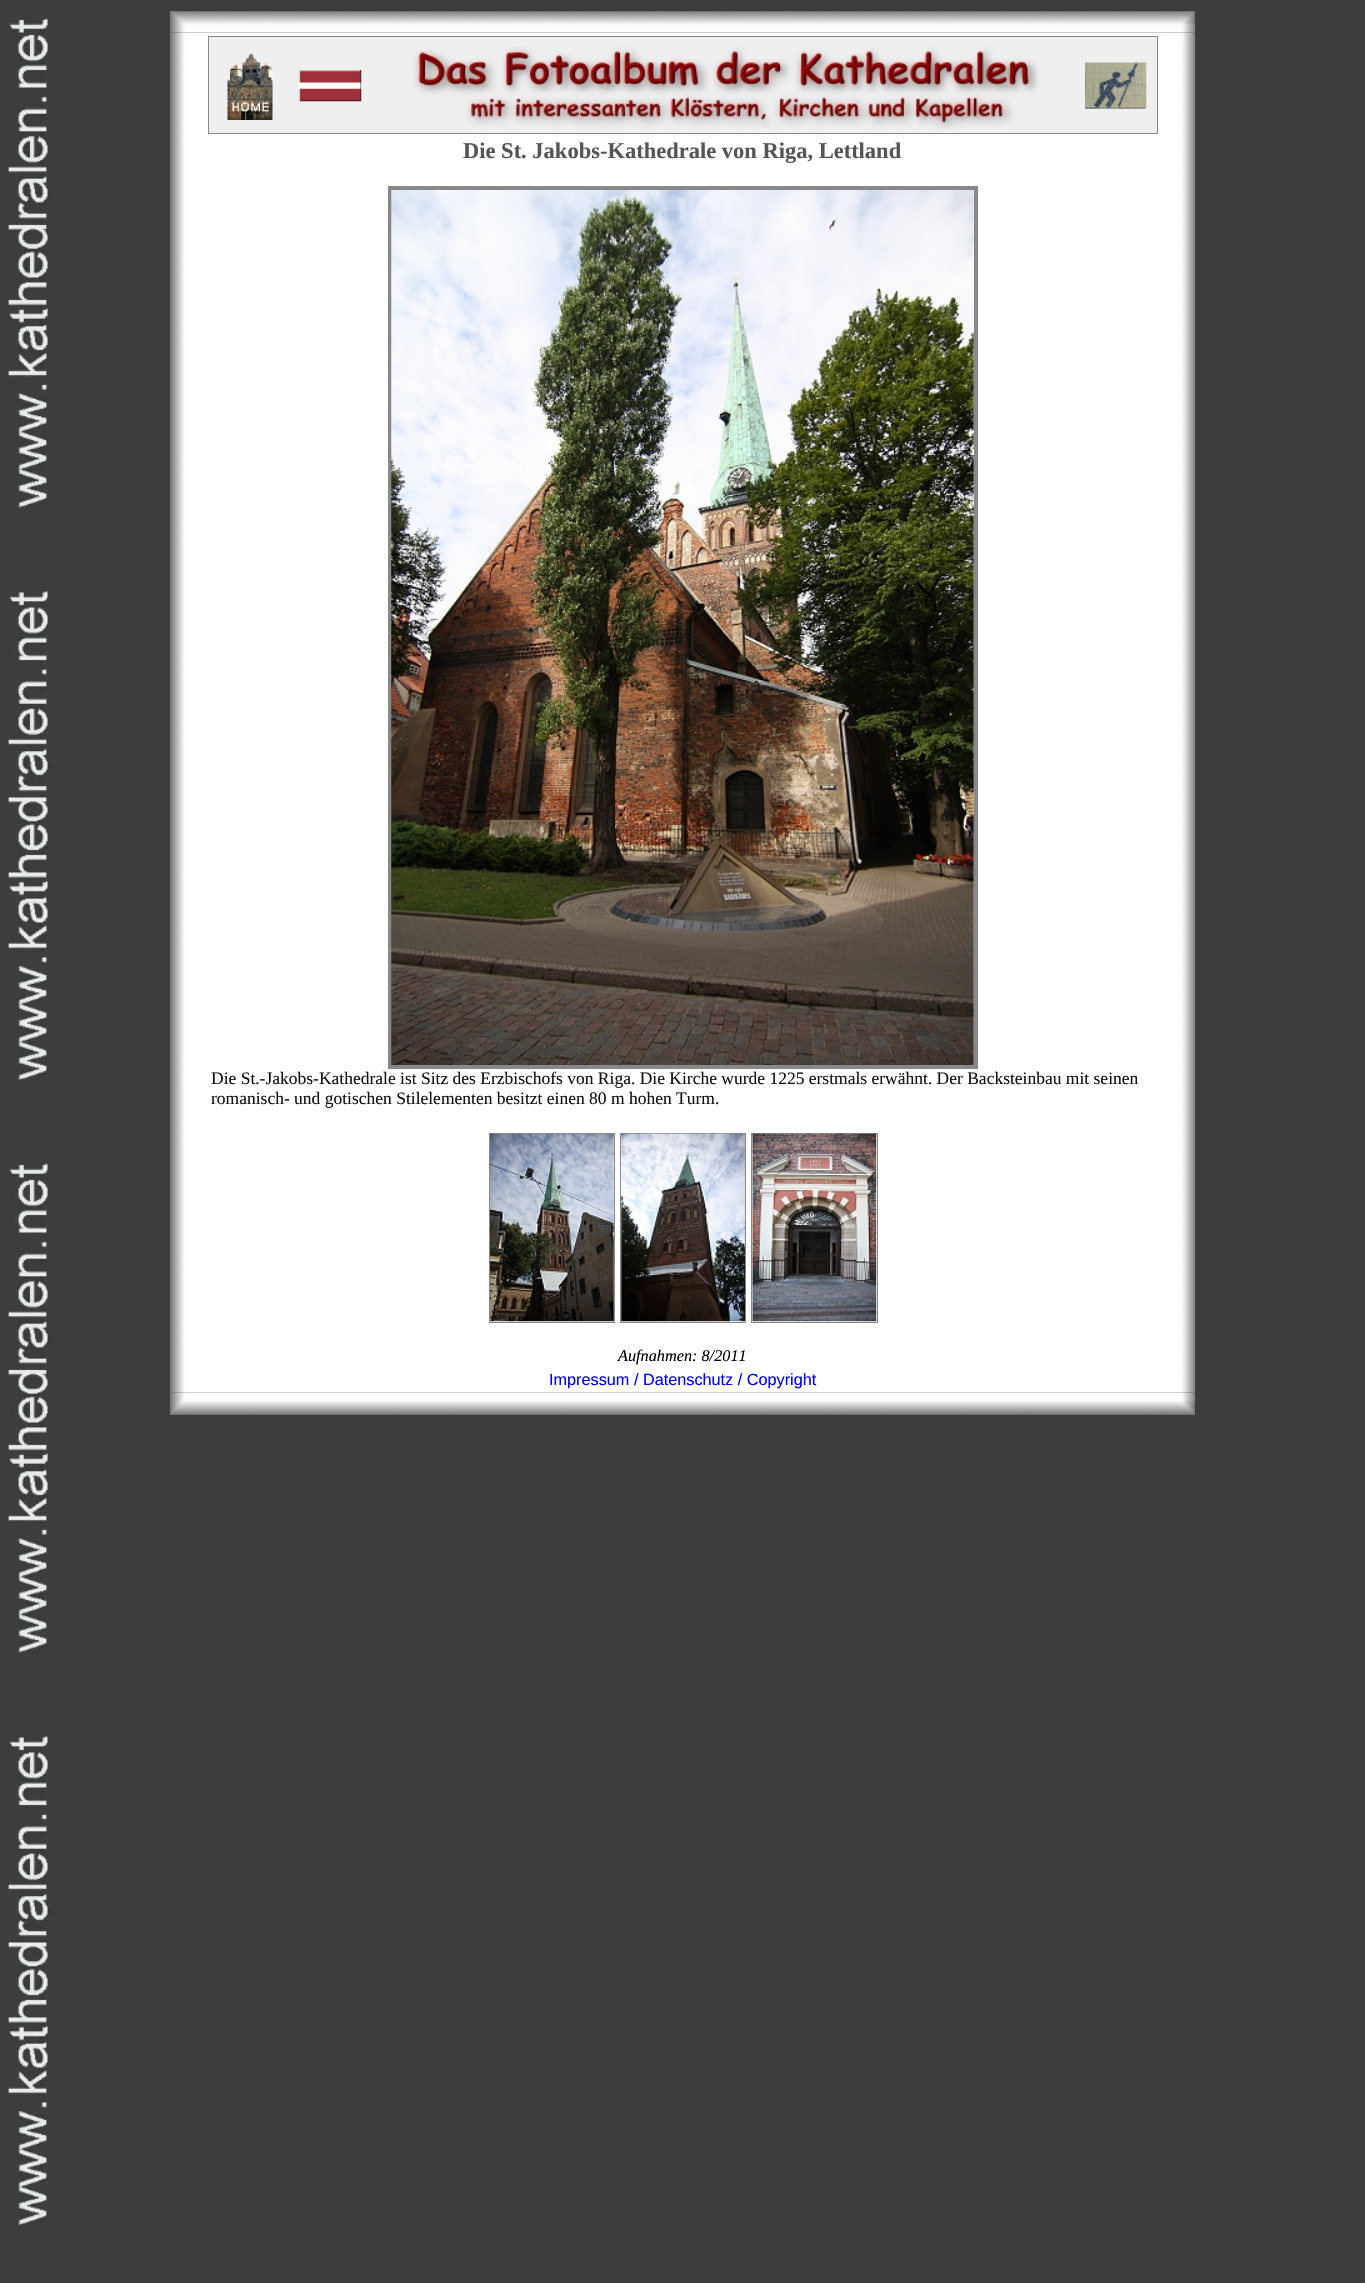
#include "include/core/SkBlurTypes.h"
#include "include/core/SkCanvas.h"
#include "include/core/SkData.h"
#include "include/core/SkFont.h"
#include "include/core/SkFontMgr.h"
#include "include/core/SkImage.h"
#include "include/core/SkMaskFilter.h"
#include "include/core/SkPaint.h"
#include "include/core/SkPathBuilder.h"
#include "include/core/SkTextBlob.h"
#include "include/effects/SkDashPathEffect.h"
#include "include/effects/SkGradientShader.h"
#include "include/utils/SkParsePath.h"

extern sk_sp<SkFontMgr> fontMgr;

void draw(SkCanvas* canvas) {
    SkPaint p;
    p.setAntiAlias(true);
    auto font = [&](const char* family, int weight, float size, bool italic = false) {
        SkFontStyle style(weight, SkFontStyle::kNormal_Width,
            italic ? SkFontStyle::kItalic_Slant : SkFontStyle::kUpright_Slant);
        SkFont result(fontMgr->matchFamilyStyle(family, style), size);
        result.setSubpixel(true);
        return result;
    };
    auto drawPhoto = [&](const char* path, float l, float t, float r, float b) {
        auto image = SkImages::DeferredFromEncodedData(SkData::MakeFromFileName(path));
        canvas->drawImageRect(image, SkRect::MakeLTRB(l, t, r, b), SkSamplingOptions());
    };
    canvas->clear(0xFFFFFFFF);
    drawPhoto("media/1.png", 0, 0, 1365, 2283);
    drawPhoto("media/3.png", 170, 32, 1195, 1393);
    drawPhoto("media/2.png", 170, 11, 1195, 33);
    p.setColor(0xFFEFEFEF);
    canvas->drawRect(SkRect::MakeLTRB(208.5f, 36.5f, 1157.5f, 133.5f), p);
    p.setStyle(SkPaint::kStroke_Style);
    p.setStrokeWidth(1);
    p.setColor(0xFF888888);
    canvas->drawRect(SkRect::MakeLTRB(208.5f, 36.5f, 1157.5f, 133.5f), p);
    drawPhoto("media/4.png", 227, 53, 273, 120);
    drawPhoto("media/5.png", 298, 70, 362, 102);
    drawPhoto("media/6.png", 413, 46, 1039, 129);
    drawPhoto("media/7.png", 1085, 62, 1147, 109);
    auto font1 = font("Liberation Serif", 700, 22.5f);
    p.setStyle(SkPaint::kFill_Style);
    p.setColor(0xFF555555);
    canvas->drawString("Die St. Jakobs-Kathedrale von Riga, Lettland", 463, 158, font1, p);
    p.setStyle(SkPaint::kStroke_Style);
    p.setStrokeWidth(4);
    p.setColor(0xFF888888);
    canvas->drawRect(SkRect::MakeLTRB(390, 188, 976, 1067), p);
    drawPhoto("media/8.png", 391, 190, 974, 1065);
    auto font2 = font("Liberation Serif", 400, 17.5f);
    p.setStyle(SkPaint::kFill_Style);
    p.setColor(0xFF121212);
    canvas->drawString("Die St.-Jakobs-Kathedrale ist Sitz des Erzbischofs von Riga. Die Kirche wurde 1225 erstmals erwähnt. Der Backsteinbau mit seinen", 211, 1084, font2, p);
    canvas->drawString("romanisch- und gotischen Stilelementen besitzt einen 80 m hohen Turm.", 211, 1104, font2, p);
    p.setStyle(SkPaint::kStroke_Style);
    p.setStrokeWidth(1);
    p.setColor(0xFF888888);
    canvas->drawRect(SkRect::MakeLTRB(489.5f, 1133.5f, 614.5f, 1322.5f), p);
    drawPhoto("media/9.png", 490, 1133, 614, 1322);
    canvas->drawRect(SkRect::MakeLTRB(620.5f, 1133.5f, 745.5f, 1322.5f), p);
    drawPhoto("media/10.png", 621, 1133, 745, 1322);
    canvas->drawRect(SkRect::MakeLTRB(751.5f, 1133.5f, 877.5f, 1322.5f), p);
    drawPhoto("media/11.png", 752, 1133, 877, 1322);
    auto font3 = font("Liberation Serif", 400, 16.25f, true);
    p.setStyle(SkPaint::kFill_Style);
    p.setColor(0xFF000000);
    canvas->drawString("Aufnahmen: 8/2011", 618, 1361, font3, p);
    auto font4 = font("Liberation Sans", 400, 16.25f);
    p.setColor(0xFF0000EE);
    canvas->drawString("Impressum / Datenschutz / Copyright", 549, 1385, font4, p);
    drawPhoto("media/12.png", 170, 1392, 1195, 1415);
}
